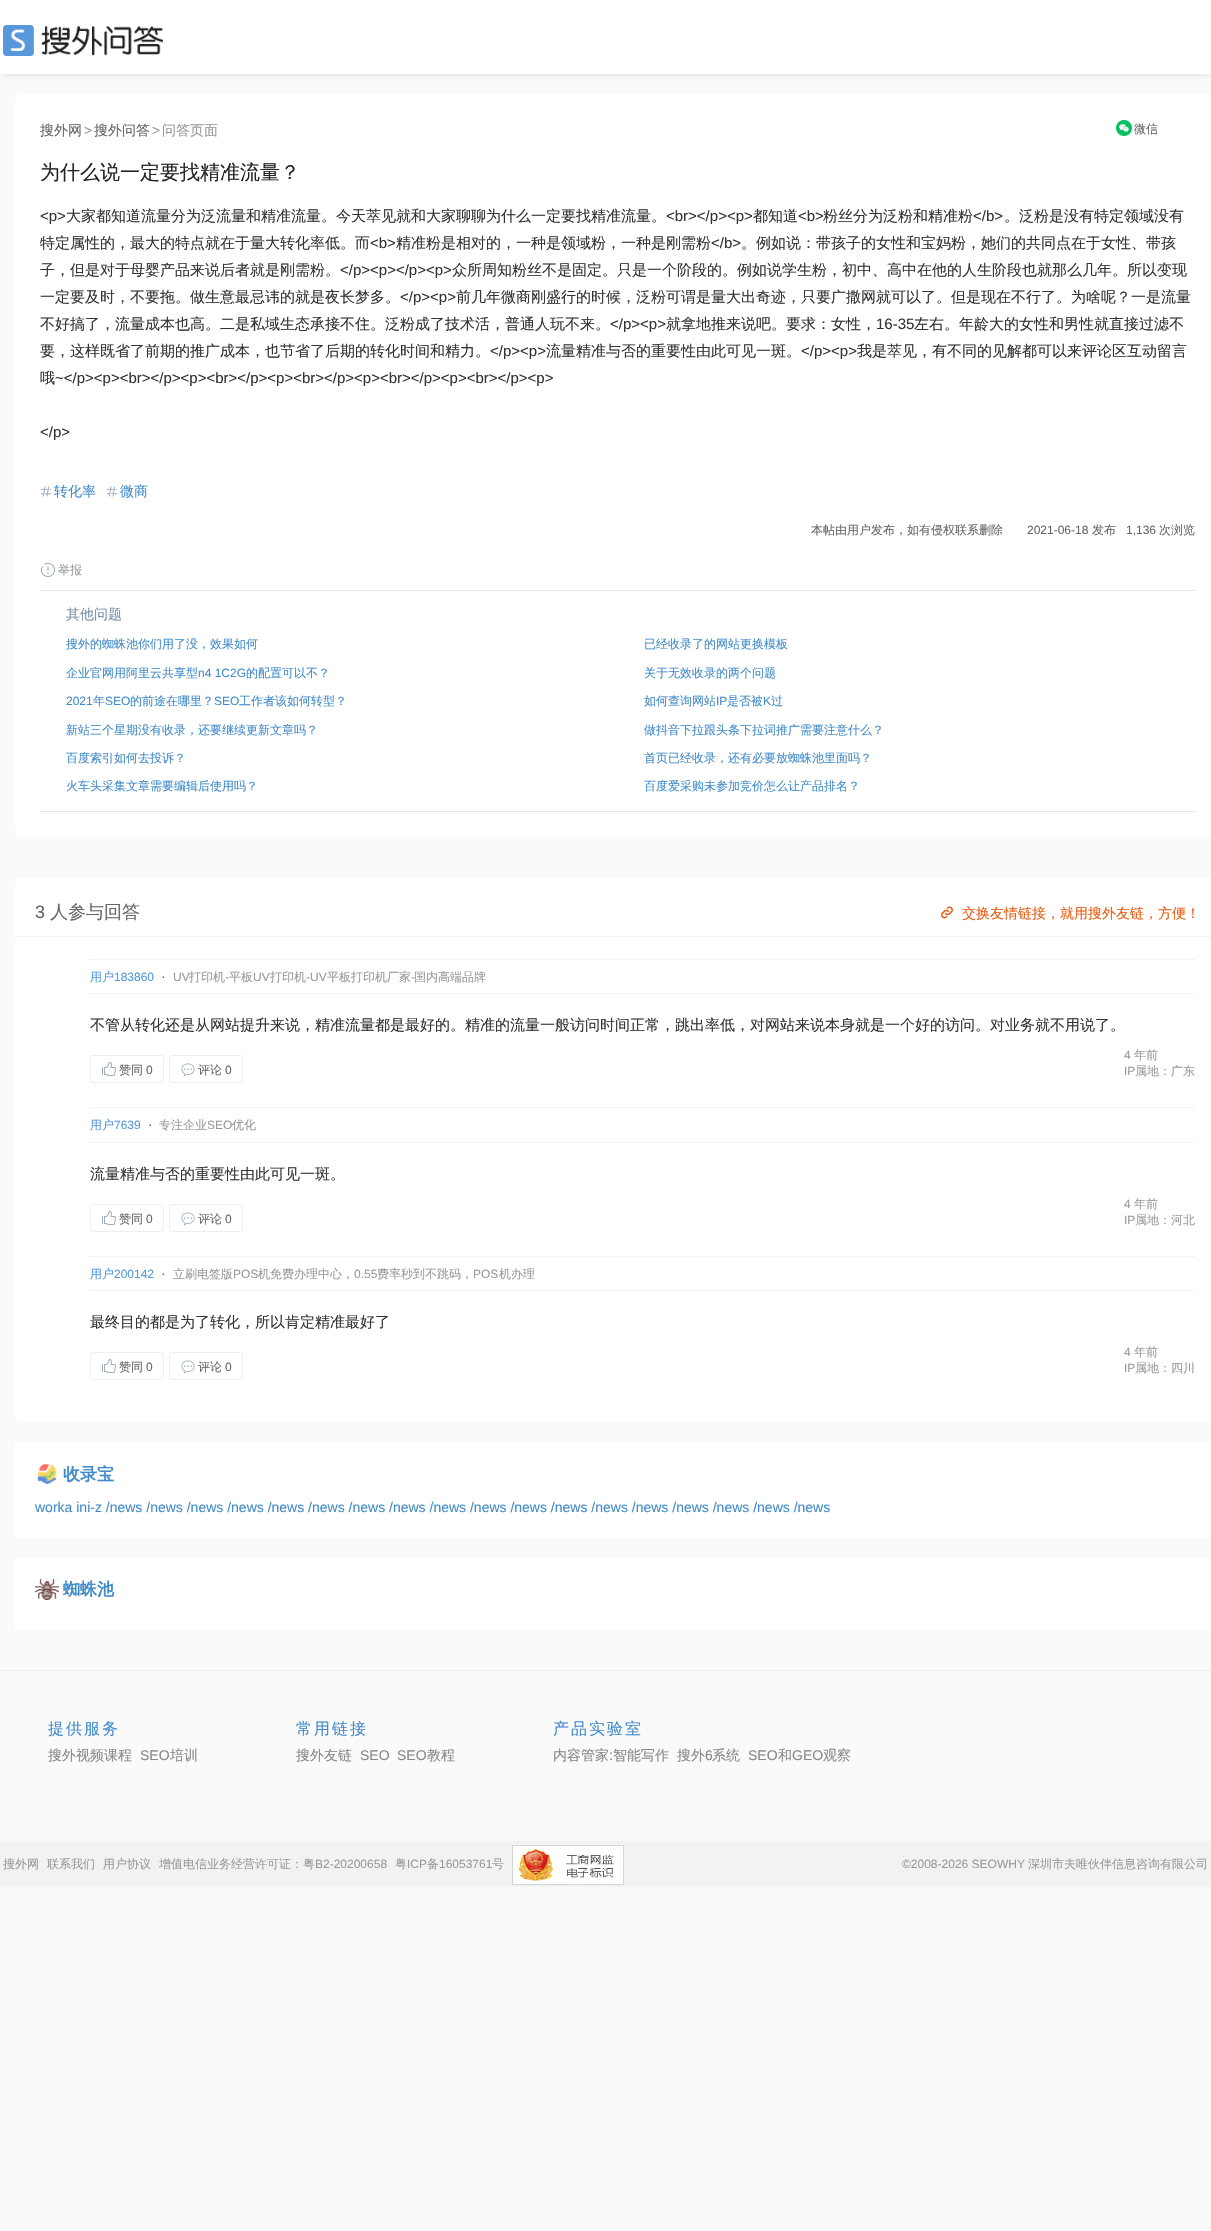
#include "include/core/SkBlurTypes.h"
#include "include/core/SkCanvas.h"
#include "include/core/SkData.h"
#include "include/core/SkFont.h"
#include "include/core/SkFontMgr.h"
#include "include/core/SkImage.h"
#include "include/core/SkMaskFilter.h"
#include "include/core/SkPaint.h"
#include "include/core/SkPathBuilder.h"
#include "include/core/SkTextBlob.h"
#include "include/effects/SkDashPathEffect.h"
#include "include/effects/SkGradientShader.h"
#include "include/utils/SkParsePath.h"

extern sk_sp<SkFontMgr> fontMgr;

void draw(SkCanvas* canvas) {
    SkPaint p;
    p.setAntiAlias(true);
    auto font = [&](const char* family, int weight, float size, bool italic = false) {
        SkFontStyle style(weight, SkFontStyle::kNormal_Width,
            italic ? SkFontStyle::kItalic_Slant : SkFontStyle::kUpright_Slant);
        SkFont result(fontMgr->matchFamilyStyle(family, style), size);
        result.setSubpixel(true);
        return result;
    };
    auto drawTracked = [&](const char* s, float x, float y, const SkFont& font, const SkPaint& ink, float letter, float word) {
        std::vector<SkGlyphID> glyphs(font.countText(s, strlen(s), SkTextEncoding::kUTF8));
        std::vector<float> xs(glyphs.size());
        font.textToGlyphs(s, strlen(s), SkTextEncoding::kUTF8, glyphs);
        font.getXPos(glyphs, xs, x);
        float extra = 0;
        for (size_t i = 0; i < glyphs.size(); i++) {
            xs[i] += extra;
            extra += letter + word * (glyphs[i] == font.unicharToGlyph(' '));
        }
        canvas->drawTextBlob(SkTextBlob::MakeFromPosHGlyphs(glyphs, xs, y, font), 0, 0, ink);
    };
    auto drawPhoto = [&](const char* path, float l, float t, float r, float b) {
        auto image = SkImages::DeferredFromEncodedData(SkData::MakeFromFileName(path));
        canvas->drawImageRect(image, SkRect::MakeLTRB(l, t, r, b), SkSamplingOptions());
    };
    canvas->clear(0xFFFAFAFA);
    p.setColor(0x1A000000);
    p.setMaskFilter(SkMaskFilter::MakeBlur(kNormal_SkBlurStyle, 2.5f));
    canvas->drawRect(SkRect::MakeLTRB(2, 5, 1209, 75), p);
    p.setMaskFilter(nullptr);
    p.setColor(0xFFFFFFFF);
    canvas->drawRect(SkRect::MakeLTRB(0, 0, 1211, 74), p);
    drawPhoto("media/1.png", 3, 25, 163, 56);
    canvas->drawRoundRect(SkRect::MakeLTRB(15, 94, 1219, 837), 8, 8, p);
    auto font1 = font("WenQuanYi Zen Hei", 500, 14);
    p.setColor(0xFF666666);
    canvas->drawString("搜外网", 40, 135, font1, p);
    auto font2 = font("Liberation Sans", 400, 14);
    p.setColor(0xFF999999);
    canvas->drawString(">", 84, 135, font2, p);
    p.setColor(0xFF666666);
    canvas->drawString("搜外问答", 94, 135, font1, p);
    p.setColor(0xFF999999);
    canvas->drawString(">", 152, 135, font2, p);
    canvas->drawString("问答页面", 162, 135, font1, p);
    drawPhoto("media/2.png", 1116, 120, 1132, 136);
    auto font3 = font("WenQuanYi Zen Hei", 500, 12);
    p.setColor(0xFF666666);
    canvas->drawString("微信", 1134, 133, font3, p);
    auto font4 = font("WenQuanYi Zen Hei", 500, 20);
    p.setColor(0xFF222222);
    canvas->drawString("为什么说一定要找精准流量？", 40, 179, font4, p);
    auto font5 = font("Liberation Sans", 400, 15);
    p.setColor(0xFF333333);
    canvas->drawString("<p>", 40, 221, font5, p);
    auto font6 = font("WenQuanYi Zen Hei", 500, 15);
    canvas->drawString("大家都知道流量分为泛流量和精准流量。今天萃见就和大家聊聊为什么一定要找精准流量。", 66, 221, font6, p);
    canvas->drawString("<br></p><p>", 666, 221, font5, p);
    canvas->drawString("都知道", 753, 221, font6, p);
    canvas->drawString("<b>", 798, 221, font5, p);
    canvas->drawString("粉丝分为泛粉和精准粉", 823, 221, font6, p);
    canvas->drawString("</b>", 973, 221, font5, p);
    canvas->drawString("。泛粉是没有特定领域没有", 1004, 221, font6, p);
    canvas->drawString("特定属性的，最大的特点就在于量大转化率低。而", 40, 248, font6, p);
    canvas->drawString("<b>", 370, 248, font5, p);
    canvas->drawString("精准粉是相对的，一种是领域粉，一种是刚需粉", 396, 248, font6, p);
    canvas->drawString("</b>", 711, 248, font5, p);
    canvas->drawString("。例如说：带孩子的女性和宝妈粉，她们的共同点在于女性、带孩", 741, 248, font6, p);
    canvas->drawString("子，但是对于母婴产品来说后者就是刚需粉。", 40, 275, font6, p);
    canvas->drawString("</p><p></p><p>", 340, 275, font5, p);
    canvas->drawString("众所周知粉丝不是固定。只是一个阶段的。例如说学生粉，初中、高中在他的人生阶段也就那么几年。所以变现", 452, 275, font6, p);
    canvas->drawString("一定要及时，不要拖。做生意最忌讳的就是夜长梦多。", 40, 302, font6, p);
    canvas->drawString("</p><p>", 400, 302, font5, p);
    canvas->drawString("前几年微商刚盛行的时候，泛粉可谓是量大出奇迹，只要广撒网就可以了。但是现在不行了。为啥呢？一是流量", 456, 302, font6, p);
    canvas->drawString("不好搞了，流量成本也高。二是私域生态承接不住。泛粉成了技术活，普通人玩不来。", 40, 329, font6, p);
    canvas->drawString("</p><p>", 610, 329, font5, p);
    canvas->drawString("就拿地推来说吧。要求：女性，", 666, 329, font6, p);
    canvas->drawString("16-35", 876, 329, font5, p);
    canvas->drawString("左右。年龄大的女性和男性就直接过滤不", 914, 329, font6, p);
    canvas->drawString("要，这样既省了前期的推广成本，也节省了后期的转化时间和精力。", 40, 356, font6, p);
    canvas->drawString("</p><p>", 490, 356, font5, p);
    canvas->drawString("流量精准与否的重要性由此可见一斑。", 546, 356, font6, p);
    canvas->drawString("</p><p>", 801, 356, font5, p);
    canvas->drawString("我是萃见，有不同的见解都可以来评论区互动留言", 857, 356, font6, p);
    canvas->drawString("哦", 40, 383, font6, p);
    canvas->drawString("~</p><p><br></p><p><br></p><p><br></p><p><br></p><p><br></p><p>", 55, 383, font5, p);
    canvas->drawString("</p>", 40, 437, font5, p);
    drawPhoto("media/3.png", 40, 486, 52, 497);
    p.setColor(0xFF428BCA);
    canvas->drawString("转化率", 54, 496, font1, p);
    drawPhoto("media/3.png", 106, 486, 118, 497);
    canvas->drawString("微商", 120, 496, font1, p);
    p.setColor(0xFF666666);
    canvas->drawString("本帖由用户发布，如有侵权联系删除", 811, 534, font3, p);
    auto font7 = font("Liberation Sans", 400, 12);
    canvas->drawString("2021-06-18", 1027, 534, font7, p);
    canvas->drawString("发布", 1092, 534, font3, p);
    canvas->drawString("1,136", 1126, 534, font7, p);
    canvas->drawString("次浏览", 1159, 534, font3, p);
    drawPhoto("media/4.png", 41, 563, 55, 577);
    p.setColor(0xFF999999);
    canvas->drawString("举报", 58, 574, font3, p);
    p.setColor(0xFFE0E8EE);
    canvas->drawRect(SkRect::MakeLTRB(40, 590, 1195, 591), p);
    canvas->drawRect(SkRect::MakeLTRB(40, 811, 1195, 812), p);
    p.setColor(0xFF7891A5);
    canvas->drawString("其他问题", 66, 619, font1, p);
    p.setColor(0xFF428BCA);
    canvas->drawString("搜外的蜘蛛池你们用了没，效果如何", 66, 648, font3, p);
    canvas->drawString("企业官网用阿里云共享型", 66, 677, font3, p);
    canvas->drawString("n4 1C2G", 198, 677, font7, p);
    canvas->drawString("的配置可以不？", 246, 677, font3, p);
    canvas->drawString("2021", 66, 705, font7, p);
    canvas->drawString("年", 93, 705, font3, p);
    canvas->drawString("SEO", 105, 705, font7, p);
    canvas->drawString("的前途在哪里？", 130, 705, font3, p);
    canvas->drawString("SEO", 214, 705, font7, p);
    {
        const struct { const char* s; float x, y; } items[] = {
            {"工作者该如何转型？", 239, 705},
            {"新站三个星期没有收录，还要继续更新文章吗？", 66, 734},
            {"百度索引如何去投诉？", 66, 762},
            {"火车头采集文章需要编辑后使用吗？", 66, 790},
            {"已经收录了的网站更换模板", 644, 648},
            {"关于无效收录的两个问题", 644, 677},
            {"如何查询网站", 644, 705},
        };
        for (auto [s, x, y] : items) {
            canvas->drawString(s, x, y, font3, p);
        }
    }
    canvas->drawString("IP", 716, 705, font7, p);
    canvas->drawString("是否被", 727, 705, font3, p);
    canvas->drawString("K", 763, 705, font7, p);
    {
        const struct { const char* s; float x, y; } items[] = {
            {"过", 771, 705},
            {"做抖音下拉跟头条下拉词推广需要注意什么？", 644, 734},
            {"首页已经收录，还有必要放蜘蛛池里面吗？", 644, 762},
            {"百度爱采购未参加竞价怎么让产品排名？", 644, 790},
        };
        for (auto [s, x, y] : items) {
            canvas->drawString(s, x, y, font3, p);
        }
    }
    p.setColor(0xFFFFFFFF);
    canvas->drawRoundRect(SkRect::MakeLTRB(15, 877, 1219, 1422), 8, 8, p);
    p.setColor(0xFFEFF3F6);
    canvas->drawRect(SkRect::MakeLTRB(15, 936, 1211, 937), p);
    auto font8 = font("Liberation Sans", 400, 18);
    p.setColor(0xFF666666);
    canvas->drawString("3", 35, 918, font8, p);
    auto font9 = font("WenQuanYi Zen Hei", 500, 18);
    canvas->drawString("人参与回答", 50, 918, font9, p);
    p.setColor(0xFFF3F3F3);
    canvas->drawRect(SkRect::MakeLTRB(90, 959, 1195, 960), p);
    canvas->drawRect(SkRect::MakeLTRB(90, 993, 1195, 994), p);
    p.setColor(0xFF5698DA);
    canvas->drawString("用户", 90, 981, font3, p);
    canvas->drawString("183860", 114, 981, font7, p);
    p.setColor(0xFF666666);
    canvas->drawString("·", 161, 981, font2, p);
    p.setColor(0xFF999999);
    canvas->drawString("UV", 173, 981, font7, p);
    canvas->drawString("打印机", 189, 981, font3, p);
    canvas->drawString("-", 225, 981, font7, p);
    canvas->drawString("平板", 229, 981, font3, p);
    canvas->drawString("UV", 253, 981, font7, p);
    canvas->drawString("打印机", 270, 981, font3, p);
    canvas->drawString("-UV", 306, 981, font7, p);
    canvas->drawString("平板打印机厂家", 327, 981, font3, p);
    canvas->drawString("-", 411, 981, font7, p);
    canvas->drawString("国内高端品牌", 414, 981, font3, p);
    p.setColor(0xFF333333);
    canvas->drawString("不管从转化还是从网站提升来说，精准流量都是最好的。精准的流量一般访问时间正常，跳出率低，对网站来说本身就是一个好的访问。对业务就不用说了。", 90, 1030, font6, p);
    p.setStyle(SkPaint::kStroke_Style);
    p.setStrokeWidth(1);
    p.setColor(0xFFEEEEEE);
    canvas->drawRoundRect(SkRect::MakeLTRB(90.5f, 1055.5f, 163.5f, 1082.5f), 2.5f, 2.5f, p);
    drawPhoto("media/5.png", 102, 1062, 116, 1076);
    p.setStyle(SkPaint::kFill_Style);
    p.setColor(0xFF666666);
    canvas->drawString("赞同", 119, 1074, font3, p);
    canvas->drawString("0", 146, 1074, font7, p);
    p.setStyle(SkPaint::kStroke_Style);
    p.setColor(0xFFEEEEEE);
    canvas->drawRoundRect(SkRect::MakeLTRB(169.5f, 1055.5f, 242.5f, 1082.5f), 2.5f, 2.5f, p);
    drawPhoto("media/6.png", 181, 1063, 195, 1077);
    p.setStyle(SkPaint::kFill_Style);
    p.setColor(0xFF666666);
    canvas->drawString("评论", 198, 1074, font3, p);
    canvas->drawString("0", 225, 1074, font7, p);
    p.setColor(0xFF999999);
    canvas->drawString("4", 1124, 1059, font7, p);
    canvas->drawString("年前", 1134, 1059, font3, p);
    canvas->drawString("IP", 1124, 1075, font7, p);
    canvas->drawString("属地：广东", 1135, 1075, font3, p);
    p.setColor(0xFFF3F3F3);
    canvas->drawRect(SkRect::MakeLTRB(90, 1107, 1195, 1108), p);
    canvas->drawRect(SkRect::MakeLTRB(90, 1142, 1195, 1143), p);
    p.setColor(0xFF5698DA);
    canvas->drawString("用户", 90, 1129, font3, p);
    canvas->drawString("7639", 114, 1129, font7, p);
    p.setColor(0xFF666666);
    canvas->drawString("·", 148, 1129, font2, p);
    p.setColor(0xFF999999);
    canvas->drawString("专注企业", 159, 1129, font3, p);
    canvas->drawString("SEO", 207, 1129, font7, p);
    canvas->drawString("优化", 232, 1129, font3, p);
    p.setColor(0xFF333333);
    canvas->drawString("流量精准与否的重要性由此可见一斑。", 90, 1179, font6, p);
    p.setStyle(SkPaint::kStroke_Style);
    p.setColor(0xFFEEEEEE);
    canvas->drawRoundRect(SkRect::MakeLTRB(90.5f, 1204.5f, 163.5f, 1231.5f), 2.5f, 2.5f, p);
    drawPhoto("media/5.png", 102, 1211, 116, 1225);
    p.setStyle(SkPaint::kFill_Style);
    p.setColor(0xFF666666);
    canvas->drawString("赞同", 119, 1223, font3, p);
    canvas->drawString("0", 146, 1223, font7, p);
    p.setStyle(SkPaint::kStroke_Style);
    p.setColor(0xFFEEEEEE);
    canvas->drawRoundRect(SkRect::MakeLTRB(169.5f, 1204.5f, 242.5f, 1231.5f), 2.5f, 2.5f, p);
    drawPhoto("media/6.png", 181, 1212, 195, 1226);
    p.setStyle(SkPaint::kFill_Style);
    p.setColor(0xFF666666);
    canvas->drawString("评论", 198, 1223, font3, p);
    canvas->drawString("0", 225, 1223, font7, p);
    p.setColor(0xFF999999);
    canvas->drawString("4", 1124, 1208, font7, p);
    canvas->drawString("年前", 1134, 1208, font3, p);
    canvas->drawString("IP", 1124, 1224, font7, p);
    canvas->drawString("属地：河北", 1135, 1224, font3, p);
    p.setColor(0xFFF3F3F3);
    canvas->drawRect(SkRect::MakeLTRB(90, 1256, 1195, 1257), p);
    canvas->drawRect(SkRect::MakeLTRB(90, 1290, 1195, 1291), p);
    p.setColor(0xFF5698DA);
    canvas->drawString("用户", 90, 1278, font3, p);
    canvas->drawString("200142", 114, 1278, font7, p);
    p.setColor(0xFF666666);
    canvas->drawString("·", 161, 1278, font2, p);
    p.setColor(0xFF999999);
    canvas->drawString("立刷电签版", 173, 1278, font3, p);
    canvas->drawString("POS", 233, 1278, font7, p);
    canvas->drawString("机免费办理中心，", 258, 1278, font3, p);
    canvas->drawString("0.55", 354, 1278, font7, p);
    canvas->drawString("费率秒到不跳码，", 377, 1278, font3, p);
    canvas->drawString("POS", 473, 1278, font7, p);
    canvas->drawString("机办理", 499, 1278, font3, p);
    p.setColor(0xFF333333);
    canvas->drawString("最终目的都是为了转化，所以肯定精准最好了", 90, 1327, font6, p);
    p.setStyle(SkPaint::kStroke_Style);
    p.setColor(0xFFEEEEEE);
    canvas->drawRoundRect(SkRect::MakeLTRB(90.5f, 1352.5f, 163.5f, 1379.5f), 2.5f, 2.5f, p);
    drawPhoto("media/5.png", 102, 1359, 116, 1373);
    p.setStyle(SkPaint::kFill_Style);
    p.setColor(0xFF666666);
    canvas->drawString("赞同", 119, 1371, font3, p);
    canvas->drawString("0", 146, 1371, font7, p);
    p.setStyle(SkPaint::kStroke_Style);
    p.setColor(0xFFEEEEEE);
    canvas->drawRoundRect(SkRect::MakeLTRB(169.5f, 1352.5f, 242.5f, 1379.5f), 2.5f, 2.5f, p);
    drawPhoto("media/6.png", 181, 1360, 195, 1374);
    p.setStyle(SkPaint::kFill_Style);
    p.setColor(0xFF666666);
    canvas->drawString("评论", 198, 1371, font3, p);
    canvas->drawString("0", 225, 1371, font7, p);
    p.setColor(0xFF999999);
    canvas->drawString("4", 1124, 1356, font7, p);
    canvas->drawString("年前", 1134, 1356, font3, p);
    canvas->drawString("IP", 1124, 1372, font7, p);
    canvas->drawString("属地：四川", 1135, 1372, font3, p);
    drawPhoto("media/7.png", 941, 906, 953, 919);
    p.setColor(0xFFEB5A0F);
    canvas->drawString("交换友情链接，就用搜外友链，方便！", 962, 918, font1, p);
    p.setColor(0xFFFFFFFF);
    canvas->drawRect(SkRect::MakeLTRB(15, 1442, 1211, 1538), p);
    drawPhoto("media/8.png", 37, 1463, 57, 1485);
    auto font10 = font("WenQuanYi Zen Hei", 700, 17);
    p.setColor(0xFF428BCA);
    canvas->drawString("收录宝", 63, 1480, font10, p);
    canvas->drawString("worka ini-z /news /news /news /news /news /news /news /news /news /news /news /news /news /news /news /news /news /news", 35, 1512, font2, p);
    p.setColor(0xFFFFFFFF);
    canvas->drawRect(SkRect::MakeLTRB(15, 1558, 1211, 1630), p);
    drawPhoto("media/9.png", 35, 1579, 59, 1600);
    p.setColor(0xFF428BCA);
    canvas->drawString("蜘蛛池", 63, 1595, font10, p);
    p.setColor(0xFFEDEDED);
    canvas->drawRect(SkRect::MakeLTRB(0, 1670, 1211, 1671), p);
    auto font11 = font("WenQuanYi Zen Hei", 500, 16);
    p.setColor(0xFF428BCA);
    drawTracked("提供服务", 48, 1734, font11, p, 2, 0);
    p.setColor(0xFF888888);
    canvas->drawString("搜外视频课程", 48, 1760, font1, p);
    canvas->drawString("SEO", 140, 1760, font2, p);
    canvas->drawString("培训", 170, 1760, font1, p);
    p.setColor(0xFF428BCA);
    drawTracked("常用链接", 296, 1734, font11, p, 2, 0);
    p.setColor(0xFF888888);
    canvas->drawString("搜外友链", 296, 1760, font1, p);
    canvas->drawString("SEO", 360, 1760, font2, p);
    canvas->drawString("SEO", 397, 1760, font2, p);
    canvas->drawString("教程", 427, 1760, font1, p);
    p.setColor(0xFF428BCA);
    drawTracked("产品实验室", 553, 1734, font11, p, 2, 0);
    p.setColor(0xFF888888);
    canvas->drawString("内容管家", 553, 1760, font1, p);
    canvas->drawString(":", 609, 1760, font2, p);
    canvas->drawString("智能写作", 613, 1760, font1, p);
    canvas->drawString("搜外", 677, 1760, font1, p);
    canvas->drawString("6", 705, 1760, font2, p);
    canvas->drawString("系统", 712, 1760, font1, p);
    canvas->drawString("SEO", 748, 1760, font2, p);
    canvas->drawString("和", 778, 1760, font1, p);
    canvas->drawString("GEO", 792, 1760, font2, p);
    canvas->drawString("观察", 823, 1760, font1, p);
    p.setColor(0xFFF2F2F2);
    canvas->drawRect(SkRect::MakeLTRB(0, 1841, 1211, 1887), p);
    p.setColor(0xFF999999);
    {
        const struct { const char* s; float x, y; } items[] = {
            {"搜外网", 3, 1868},
            {"联系我们", 47, 1868},
            {"用户协议", 103, 1868},
            {"增值电信业务经营许可证：粤", 159, 1868},
        };
        for (auto [s, x, y] : items) {
            canvas->drawString(s, x, y, font3, p);
        }
    }
    canvas->drawString("B2-20200658", 315, 1868, font7, p);
    canvas->drawString("粤", 395, 1868, font3, p);
    canvas->drawString("ICP", 407, 1868, font7, p);
    canvas->drawString("备", 427, 1868, font3, p);
    canvas->drawString("16053761", 439, 1868, font7, p);
    canvas->drawString("号", 492, 1868, font3, p);
    drawPhoto("media/10.png", 512, 1845, 624, 1885);
    canvas->drawString("©2008-2026 SEOWHY", 902, 1868, font7, p);
    canvas->drawString("深圳市夫唯伙伴信息咨询有限公司", 1028, 1868, font3, p);
}
